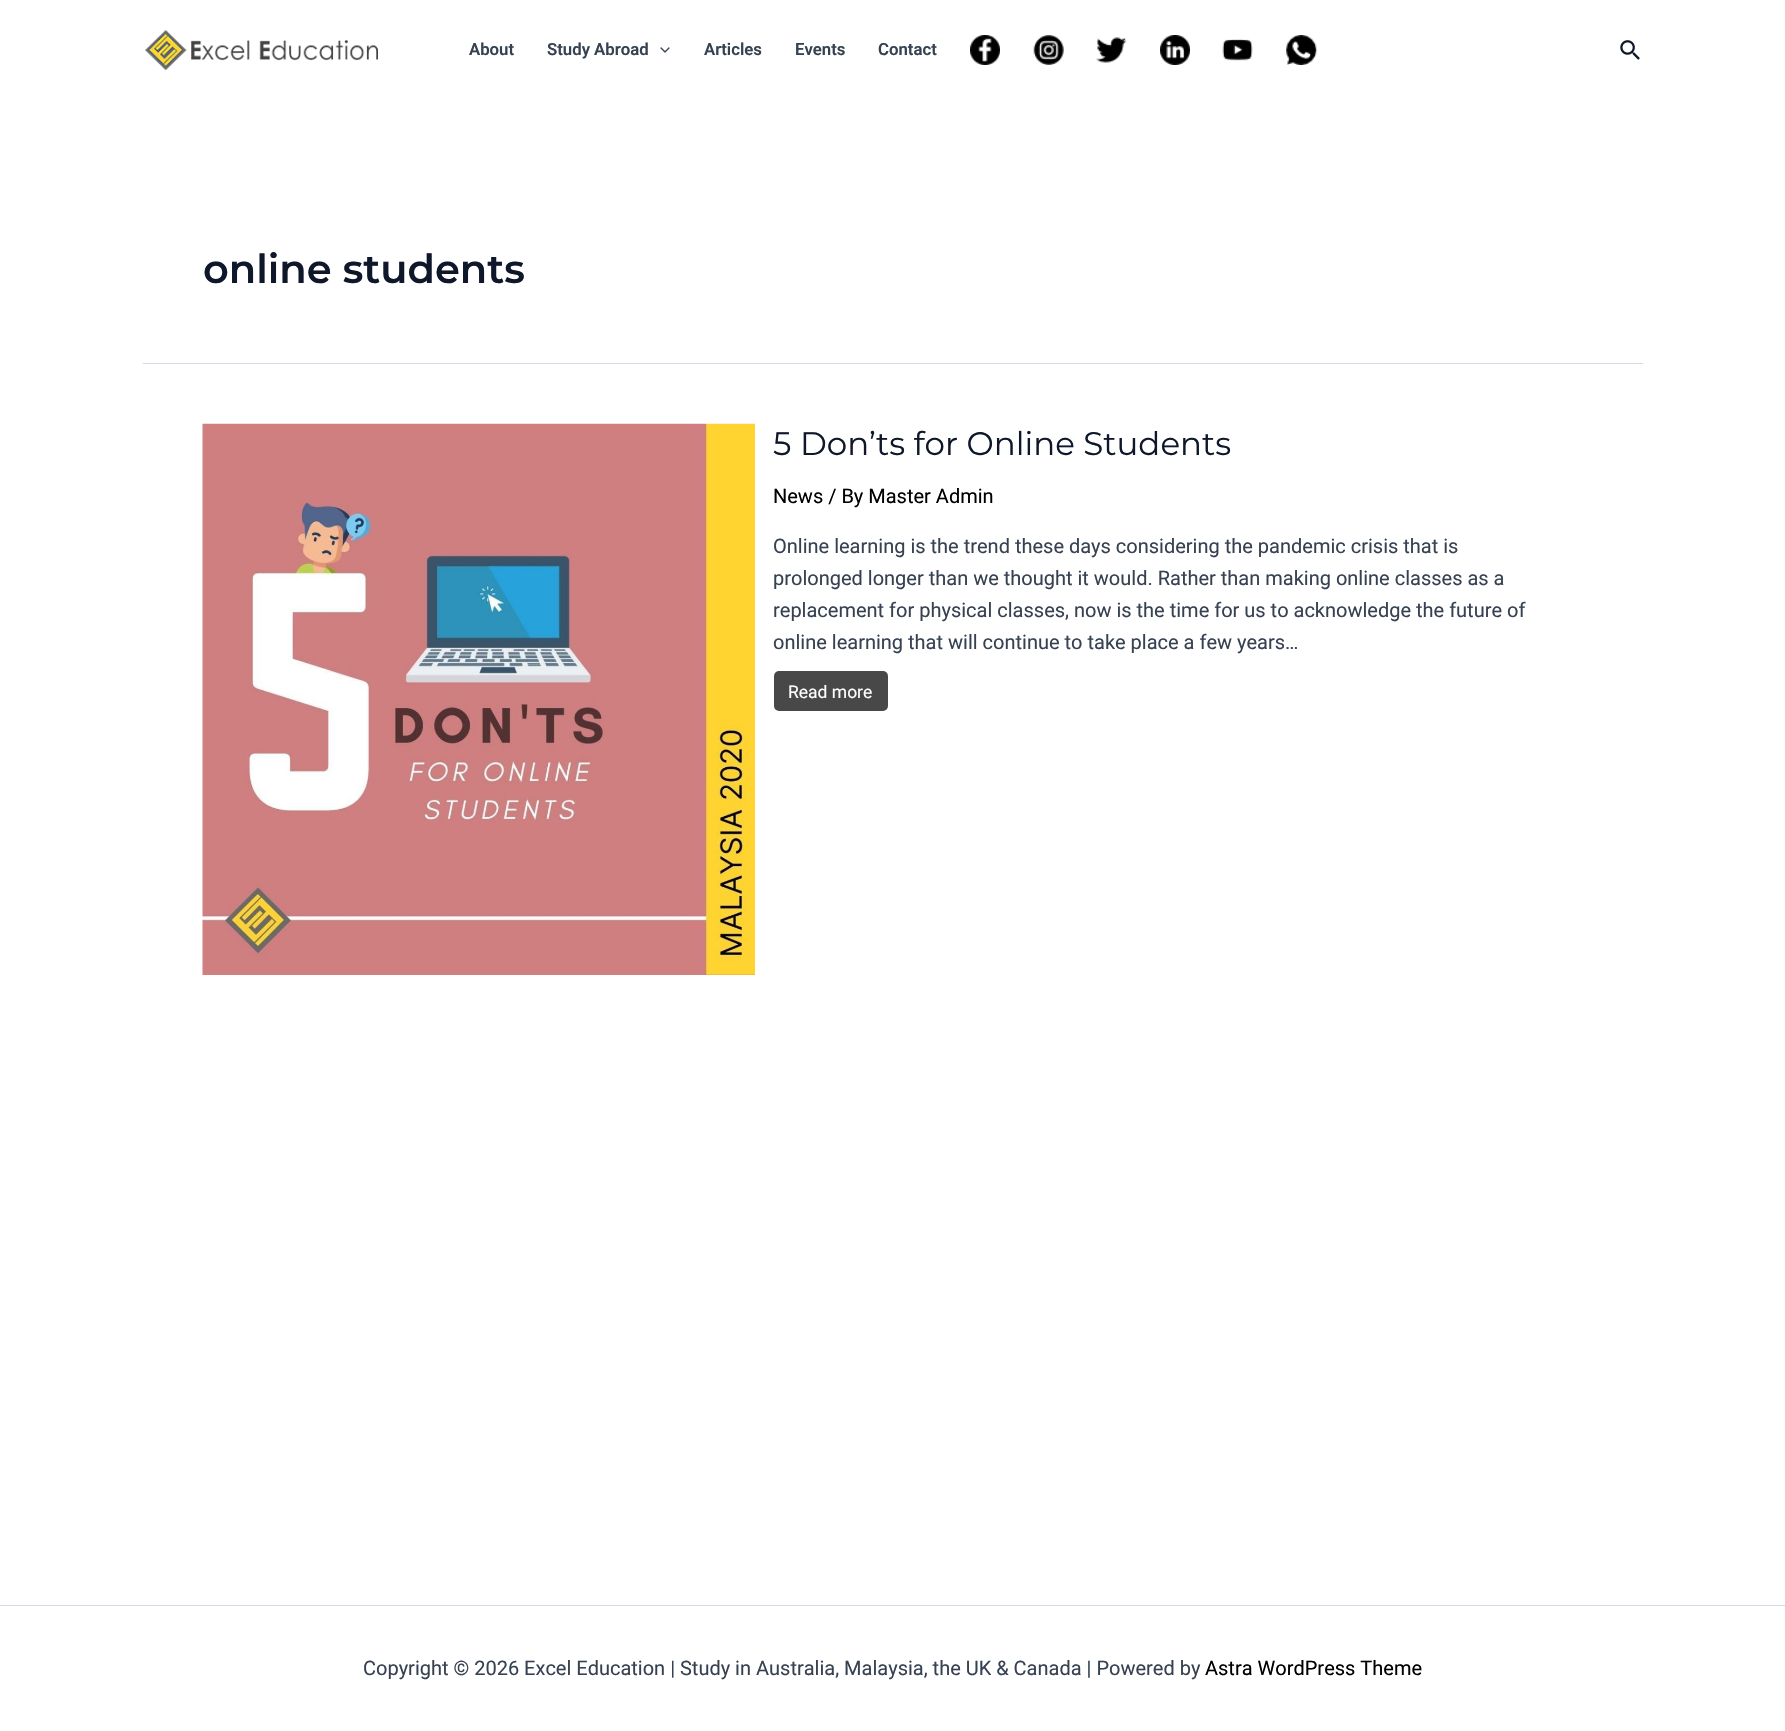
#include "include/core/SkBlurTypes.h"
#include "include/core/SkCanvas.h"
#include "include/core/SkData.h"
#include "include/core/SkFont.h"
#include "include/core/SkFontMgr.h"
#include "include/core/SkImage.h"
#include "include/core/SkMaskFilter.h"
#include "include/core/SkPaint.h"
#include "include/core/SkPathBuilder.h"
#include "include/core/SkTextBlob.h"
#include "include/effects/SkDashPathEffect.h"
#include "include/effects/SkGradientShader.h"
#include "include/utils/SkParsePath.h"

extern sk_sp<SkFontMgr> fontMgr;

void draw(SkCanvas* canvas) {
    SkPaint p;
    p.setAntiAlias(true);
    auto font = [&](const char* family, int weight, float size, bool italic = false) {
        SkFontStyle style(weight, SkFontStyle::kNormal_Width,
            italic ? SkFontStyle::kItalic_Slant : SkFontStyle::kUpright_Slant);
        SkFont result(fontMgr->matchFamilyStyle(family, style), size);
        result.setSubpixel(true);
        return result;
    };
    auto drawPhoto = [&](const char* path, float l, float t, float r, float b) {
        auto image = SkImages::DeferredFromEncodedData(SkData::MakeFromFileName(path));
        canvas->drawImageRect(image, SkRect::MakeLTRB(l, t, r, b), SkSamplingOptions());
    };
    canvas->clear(0xFFFFFFFF);
    drawPhoto("media/1.png", 145, 29, 378, 71);
    auto font1 = font("Roboto", 600, 16.75f);
    p.setColor(0xFF364151);
    canvas->drawString("About", 469, 55, font1, p);
    canvas->drawString("Study Abroad", 547, 55, font1, p);
    drawPhoto("media/2.png", 660, 47, 670, 53);
    {
        const struct { const char* s; float x, y; } items[] = {
            {"Articles", 704, 55},
            {"Events", 795, 55},
            {"Contact", 878, 55},
        };
        for (auto [s, x, y] : items) {
            canvas->drawString(s, x, y, font1, p);
        }
    }
    drawPhoto("media/3.png", 970, 35, 1000, 65);
    drawPhoto("media/4.png", 1033, 35, 1064, 65);
    drawPhoto("media/5.png", 1096, 37, 1127, 63);
    drawPhoto("media/6.png", 1160, 35, 1190, 65);
    drawPhoto("media/7.png", 1222, 39, 1253, 61);
    drawPhoto("media/8.png", 1286, 35, 1317, 65);
    drawPhoto("media/9.png", 1620, 40, 1640, 60);
    p.setColor(0xFFD1DAE5);
    canvas->drawRect(SkRect::MakeLTRB(143, 363, 1643, 364), p);
    auto font2 = font("Montserrat", 600, 40);
    p.setColor(0xFF0F172A);
    canvas->drawString("online students", 203, 283, font2, p);
    drawPhoto("media/10.png", 202, 423, 755, 975);
    auto font3 = font("Montserrat", 400, 32.5f);
    canvas->drawString("5 Don’ts for Online Students", 773, 455, font3, p);
    auto font4 = font("Roboto", 400, 20);
    p.setColor(0xFF000000);
    canvas->drawString("News / By Master Admin", 773, 503, font4, p);
    p.setColor(0xFF364151);
    {
        const struct { const char* s; float x, y; } items[] = {
            {"Online learning is the trend these days considering the pandemic crisis that is", 773, 553},
            {"prolonged longer than we thought it would. Rather than making online classes as a", 773, 585},
            {"replacement for physical classes, now is the time for us to acknowledge the future of", 773, 617},
            {"online learning that will continue to take place a few years…", 773, 649},
        };
        for (auto [s, x, y] : items) {
            canvas->drawString(s, x, y, font4, p);
        }
    }
    p.setColor(0xFF484848);
    canvas->drawRoundRect(SkRect::MakeLTRB(774, 671, 888, 711), 5, 5, p);
    auto font5 = font("Roboto", 400, 17.5f);
    p.setColor(0xFFFFFFFF);
    canvas->drawString("Read more", 788, 698, font5, p);
    p.setColor(0xFFD1DAE5);
    canvas->drawRect(SkRect::MakeLTRB(0, 1605, 1785, 1606), p);
    p.setColor(0xFF364151);
    canvas->drawString("Copyright © 2026 Excel Education | Study in Australia, Malaysia, the UK & Canada | Powered by", 363, 1675, font4, p);
    p.setColor(0xFF000000);
    canvas->drawString("Astra WordPress Theme", 1205, 1675, font4, p);
}
